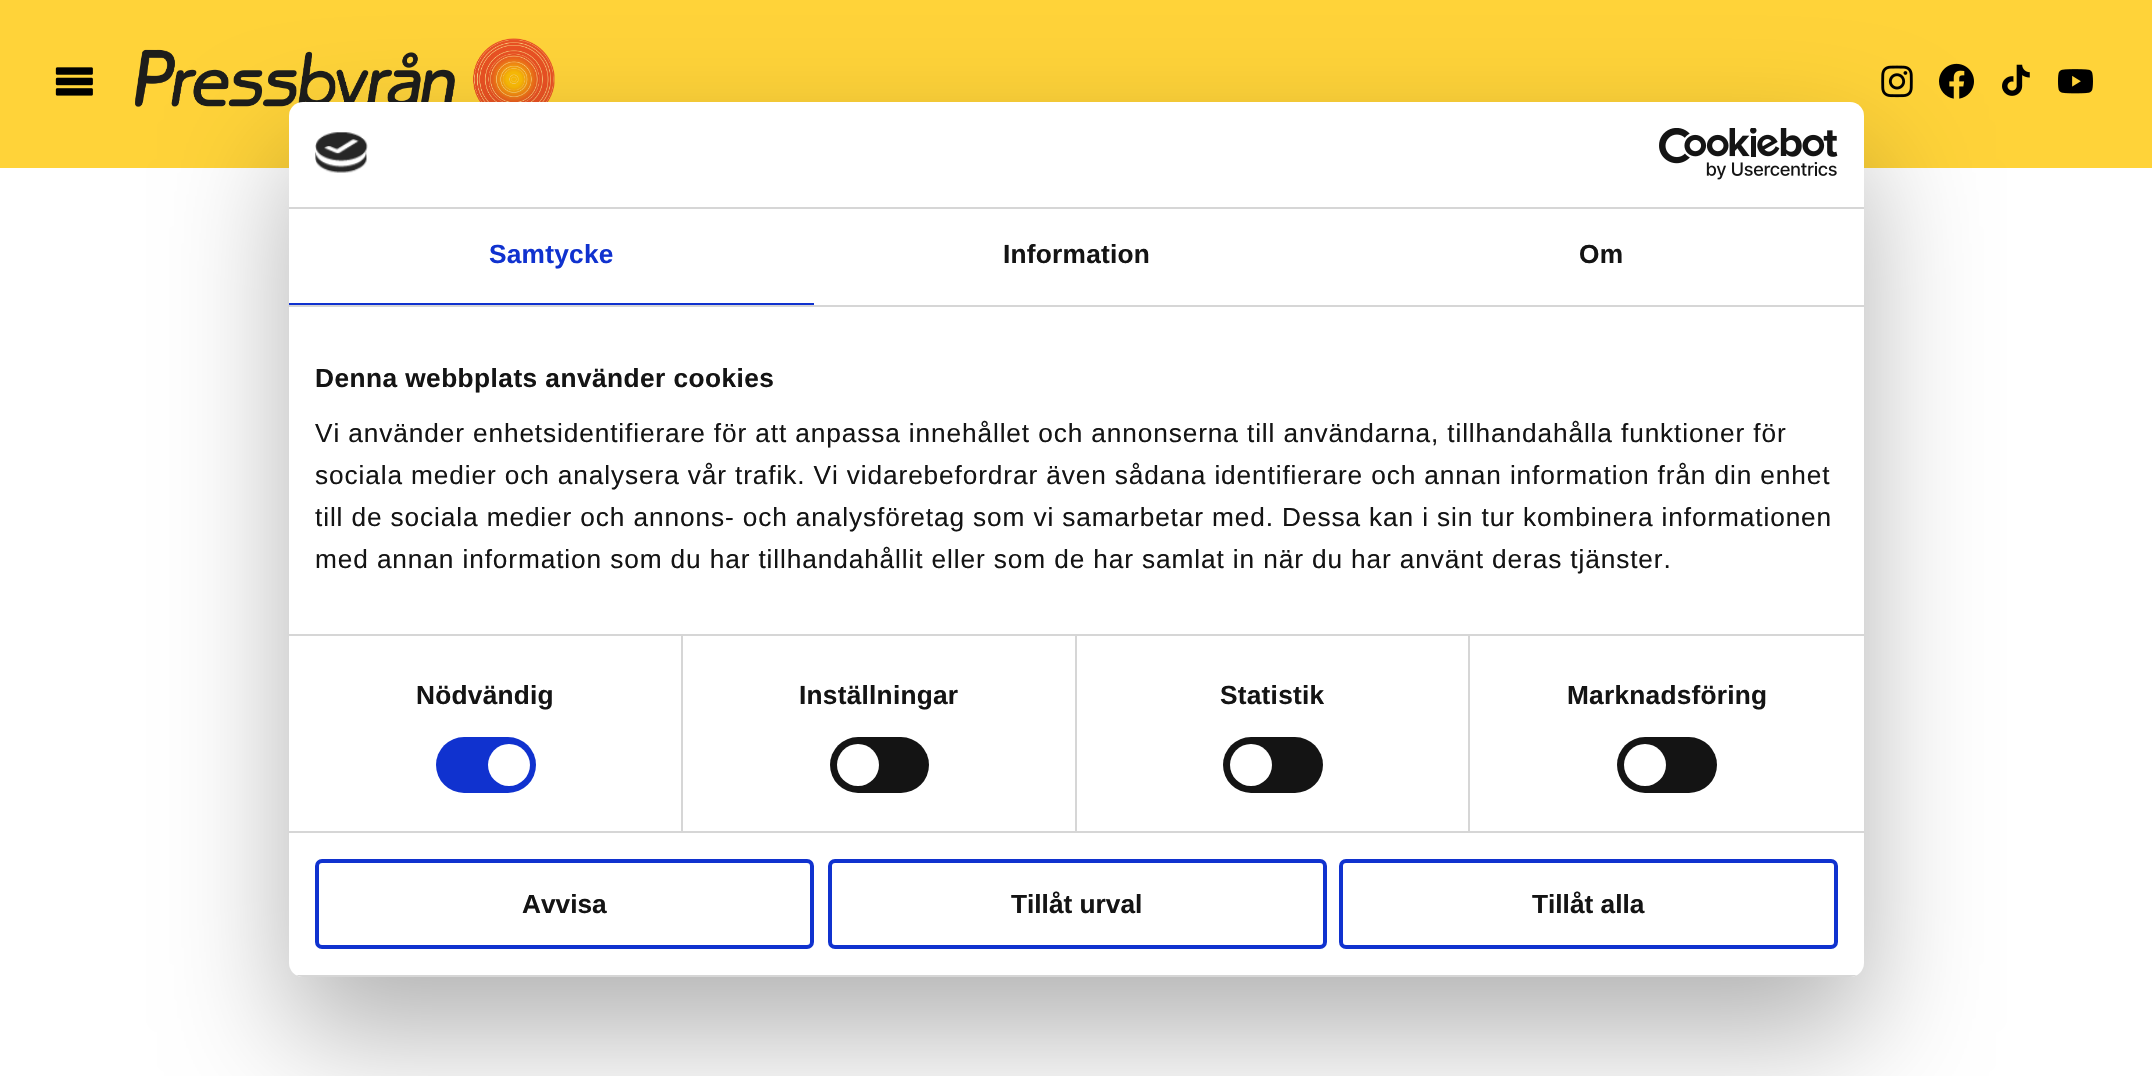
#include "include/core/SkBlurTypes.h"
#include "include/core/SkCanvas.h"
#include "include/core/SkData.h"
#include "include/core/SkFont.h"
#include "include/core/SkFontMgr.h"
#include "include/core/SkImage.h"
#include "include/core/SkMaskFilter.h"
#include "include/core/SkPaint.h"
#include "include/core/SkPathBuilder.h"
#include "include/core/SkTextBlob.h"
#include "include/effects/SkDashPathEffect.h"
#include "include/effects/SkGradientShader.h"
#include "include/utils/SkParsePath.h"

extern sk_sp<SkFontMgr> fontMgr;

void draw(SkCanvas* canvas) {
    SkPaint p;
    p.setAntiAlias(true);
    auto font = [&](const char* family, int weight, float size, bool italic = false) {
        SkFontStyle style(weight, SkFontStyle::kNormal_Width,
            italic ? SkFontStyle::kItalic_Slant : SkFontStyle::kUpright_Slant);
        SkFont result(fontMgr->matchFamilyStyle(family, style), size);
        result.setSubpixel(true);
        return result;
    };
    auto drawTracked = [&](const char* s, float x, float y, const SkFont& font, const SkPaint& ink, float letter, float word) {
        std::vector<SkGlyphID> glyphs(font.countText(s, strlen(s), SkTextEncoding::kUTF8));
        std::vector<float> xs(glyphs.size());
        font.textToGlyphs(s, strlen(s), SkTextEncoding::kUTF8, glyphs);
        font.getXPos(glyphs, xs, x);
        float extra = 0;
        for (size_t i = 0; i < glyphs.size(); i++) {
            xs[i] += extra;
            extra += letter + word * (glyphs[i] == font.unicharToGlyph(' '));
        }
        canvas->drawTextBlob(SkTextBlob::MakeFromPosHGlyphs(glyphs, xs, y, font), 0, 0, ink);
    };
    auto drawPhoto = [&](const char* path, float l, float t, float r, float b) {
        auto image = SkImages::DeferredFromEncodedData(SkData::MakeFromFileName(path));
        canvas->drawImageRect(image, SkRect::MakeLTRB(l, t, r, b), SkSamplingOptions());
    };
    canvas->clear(0xFFFFD339);
    drawPhoto("media/1.png", 55, 67, 93, 96);
    drawPhoto("media/2.png", 135, 38, 555, 107);
    drawPhoto("media/3.png", 1881, 65, 1913, 98);
    drawPhoto("media/4.png", 1939, 63, 1974, 99);
    drawPhoto("media/5.png", 2002, 64, 2030, 96);
    drawPhoto("media/6.png", 2058, 69, 2093, 94);
    p.setColor(0xFFFFFFFF);
    canvas->drawRect(SkRect::MakeLTRB(0, 168, 2152, 1076), p);
    p.setColor(0x4D000000);
    p.setMaskFilter(SkMaskFilter::MakeBlur(kNormal_SkBlurStyle, 59.5f));
    canvas->drawRoundRect(SkRect::MakeLTRB(289, 158, 1864, 1033), 14, 14, p);
    p.setMaskFilter(nullptr);
    p.setColor(0xFFFFFFFF);
    canvas->drawRoundRect(SkRect::MakeLTRB(289, 102, 1864, 977), 14, 14, p);
    p.setColor(0xFFD6D6D6);
    canvas->drawRect(SkRect::MakeLTRB(289, 207, 1864, 209), p);
    drawPhoto("media/7.png", 315, 132, 368, 173);
    drawPhoto("media/8.png", 1659, 128, 1838, 180);
    canvas->drawRect(SkRect::MakeLTRB(289, 305, 1864, 307), p);
    p.setColor(0xFF1032CF);
    canvas->drawRect(SkRect::MakeLTRB(289, 303, 814, 305), p);
    auto font1 = font("Liberation Sans", 700, 26.25f);
    drawTracked("Samtycke", 489, 263, font1, p, 0.25f, 0);
    p.setColor(0xFF141414);
    drawTracked("Information", 1003, 263, font1, p, 0.25f, 0);
    drawTracked("Om", 1579, 263, font1, p, 0.25f, 0);
    {
        const struct { float l, t, r, b; SkColor color; } items[] = {
            {681, 635, 683, 831, 0xFFD6D6D6},
            {1075, 635, 1077, 831, 0xFFD6D6D6},
            {1468, 635, 1470, 831, 0xFFD6D6D6},
            {289, 634, 1864, 636, 0xFFD6D6D6},
        };
        for (auto [l, t, r, b, color] : items) {
            p.setColor(color);
            canvas->drawRect(SkRect::MakeLTRB(l, t, r, b), p);
        }
    }
    p.setColor(0xFF141414);
    drawTracked("Denna webbplats använder cookies", 315, 387, font1, p, 0.45f, 0);
    auto font2 = font("Liberation Sans", 400, 26.25f);
    {
        const struct { const char* s; float x, y; } items[] = {
            {"Vi använder enhetsidentifierare för att anpassa innehållet och annonserna till användarna, tillhandahålla funktioner för", 315, 442},
            {"sociala medier och analysera vår trafik. Vi vidarebefordrar även sådana identifierare och annan information från din enhet", 315, 484},
            {"till de sociala medier och annons- och analysföretag som vi samarbetar med. Dessa kan i sin tur kombinera informationen", 315, 526},
            {"med annan information som du har tillhandahållit eller som de har samlat in när du har använt deras tjänster.", 315, 568},
        };
        for (auto [s, x, y] : items) {
            drawTracked(s, x, y, font2, p, 0.88f, 0);
        }
    }
    p.setColor(0xFFD6D6D6);
    canvas->drawRect(SkRect::MakeLTRB(289, 831, 1864, 833), p);
    p.setColor(0xFF141414);
    drawTracked("Nödvändig", 416, 704, font1, p, 0.25f, 0);
    p.setColor(0xFF1032CF);
    canvas->drawRoundRect(SkRect::MakeLTRB(436, 737, 536, 793), 28, 28, p);
    p.setColor(0xFFFFFFFF);
    canvas->drawCircle(509, 765, 21, p);
    p.setColor(0xFF141414);
    drawTracked("Inställningar", 799, 704, font1, p, 0.25f, 0);
    canvas->drawRoundRect(SkRect::MakeLTRB(830, 737, 929, 793), 28, 28, p);
    p.setColor(0xFFFFFFFF);
    canvas->drawCircle(858, 765, 21, p);
    p.setColor(0xFF141414);
    drawTracked("Statistik", 1220, 704, font1, p, 0.25f, 0);
    canvas->drawRoundRect(SkRect::MakeLTRB(1223, 737, 1323, 793), 28, 28, p);
    p.setColor(0xFFFFFFFF);
    canvas->drawCircle(1251, 765, 21, p);
    p.setColor(0xFF141414);
    drawTracked("Marknadsföring", 1567, 704, font1, p, 0.25f, 0);
    canvas->drawRoundRect(SkRect::MakeLTRB(1617, 737, 1717, 793), 28, 28, p);
    p.setColor(0xFFFFFFFF);
    canvas->drawCircle(1645, 765, 21, p);
    canvas->save();
    canvas->clipPath(SkPathBuilder().moveTo(303, 102).lineTo(1850, 102).cubicTo(1857.5f, 102, 1864, 108.5f, 1864, 116).lineTo(1864, 963).cubicTo(1864, 970.5f, 1857.5f, 977, 1850, 977).lineTo(303, 977).cubicTo(295.5f, 977, 289, 970.5f, 289, 963).lineTo(289, 116).cubicTo(289, 108.5f, 295.5f, 102, 303, 102).close().detach(), true);
    p.setColor(0xFFD6D6D6);
    canvas->drawRect(SkRect::MakeLTRB(289, 975, 1864, 977), p);
    canvas->restore();
    p.setStyle(SkPaint::kStroke_Style);
    p.setStrokeWidth(4);
    p.setColor(0xFF1032CF);
    canvas->drawRoundRect(SkRect::MakeLTRB(317, 861, 812, 947), 5, 5, p);
    p.setStyle(SkPaint::kFill_Style);
    p.setColor(0xFF141414);
    canvas->drawString("Avvisa", 522, 913, font1, p);
    p.setStyle(SkPaint::kStroke_Style);
    p.setColor(0xFF1032CF);
    canvas->drawRoundRect(SkRect::MakeLTRB(830, 861, 1325, 947), 5, 5, p);
    p.setStyle(SkPaint::kFill_Style);
    p.setColor(0xFF141414);
    canvas->drawString("Tillåt urval", 1011, 913, font1, p);
    p.setStyle(SkPaint::kStroke_Style);
    p.setColor(0xFF1032CF);
    canvas->drawRoundRect(SkRect::MakeLTRB(1341, 861, 1836, 947), 5, 5, p);
    p.setStyle(SkPaint::kFill_Style);
    p.setColor(0xFF141414);
    canvas->drawString("Tillåt alla", 1532, 913, font1, p);
}
